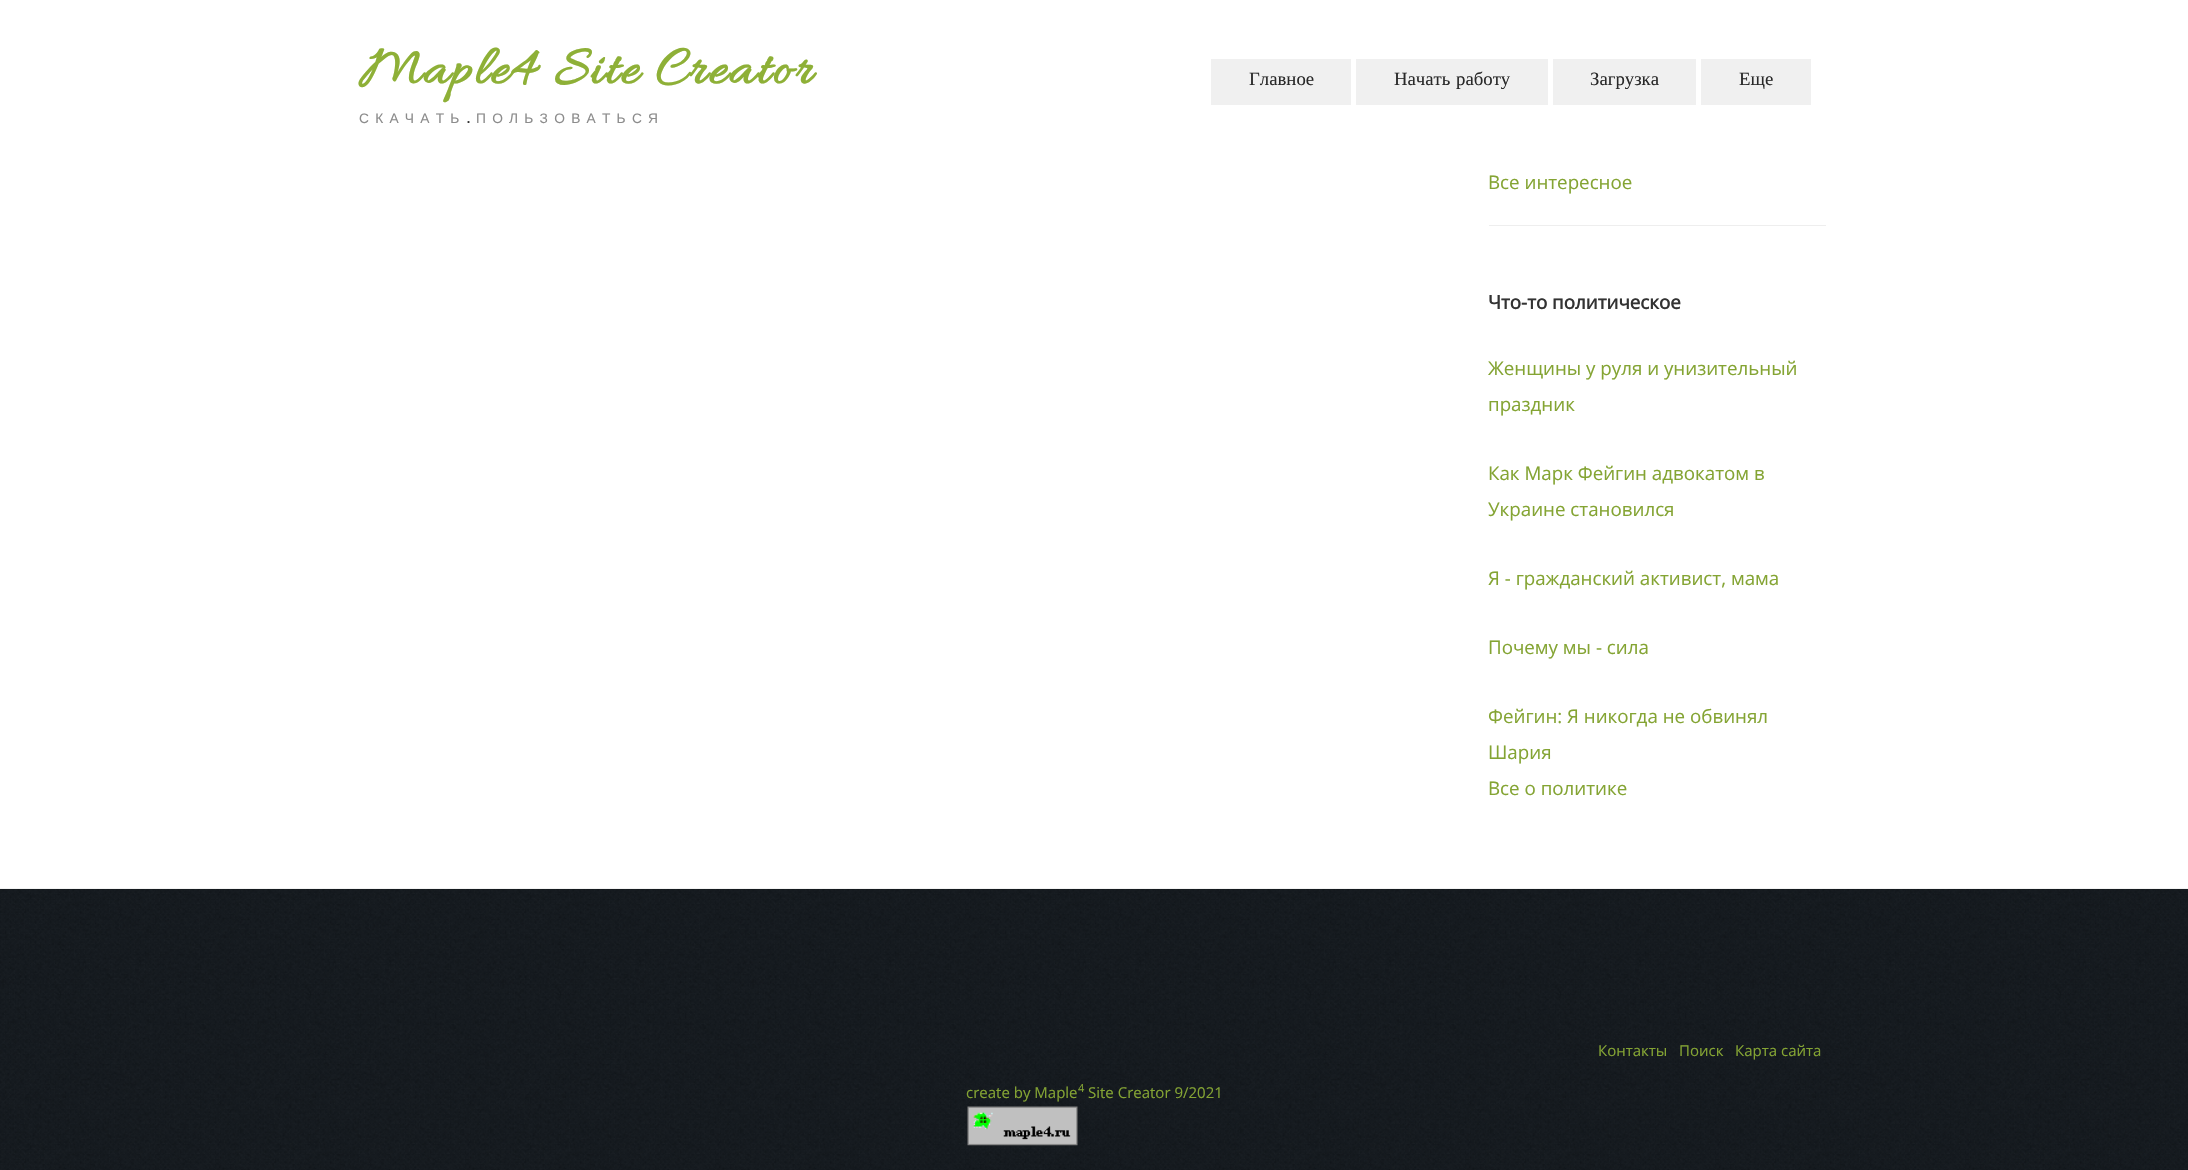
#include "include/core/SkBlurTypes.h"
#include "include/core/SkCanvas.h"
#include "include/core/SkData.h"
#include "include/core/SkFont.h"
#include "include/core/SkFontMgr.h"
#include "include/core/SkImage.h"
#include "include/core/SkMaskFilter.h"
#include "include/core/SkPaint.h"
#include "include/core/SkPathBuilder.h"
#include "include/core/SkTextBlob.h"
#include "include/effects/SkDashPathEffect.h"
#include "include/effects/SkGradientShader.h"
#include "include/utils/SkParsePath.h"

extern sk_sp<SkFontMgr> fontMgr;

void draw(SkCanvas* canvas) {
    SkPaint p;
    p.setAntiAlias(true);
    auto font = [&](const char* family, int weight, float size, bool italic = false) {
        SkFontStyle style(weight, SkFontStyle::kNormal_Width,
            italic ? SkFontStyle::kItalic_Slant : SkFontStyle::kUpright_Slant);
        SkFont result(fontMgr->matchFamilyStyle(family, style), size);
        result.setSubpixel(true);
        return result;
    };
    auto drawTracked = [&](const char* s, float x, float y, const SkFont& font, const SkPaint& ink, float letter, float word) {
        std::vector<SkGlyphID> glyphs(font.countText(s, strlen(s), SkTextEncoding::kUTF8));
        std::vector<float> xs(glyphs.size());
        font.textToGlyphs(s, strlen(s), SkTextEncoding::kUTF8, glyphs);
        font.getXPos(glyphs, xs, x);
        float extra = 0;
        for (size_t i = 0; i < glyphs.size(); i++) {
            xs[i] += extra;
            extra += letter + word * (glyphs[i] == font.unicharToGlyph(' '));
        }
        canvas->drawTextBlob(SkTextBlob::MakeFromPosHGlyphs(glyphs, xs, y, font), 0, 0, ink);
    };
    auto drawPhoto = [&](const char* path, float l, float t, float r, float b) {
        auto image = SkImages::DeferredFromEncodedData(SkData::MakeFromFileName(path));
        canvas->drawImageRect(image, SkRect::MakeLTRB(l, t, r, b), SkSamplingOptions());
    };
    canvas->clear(0xFFFFFFFF);
    auto font1 = font("Allura", 700, 56.25f);
    p.setColor(0xFF8EB037);
    drawTracked("Maple4 Site Creator", 359, 83, font1, p, 2.5f, 0);
    auto font2 = font("Liberation Sans", 400, 13.75f);
    p.setColor(0xFF8C8C8C);
    drawTracked("СКАЧАТЬ", 359, 123, font2, p, 6.25f, 0);
    auto font3 = font("Liberation Sans", 400, 18);
    p.setColor(0xFF333333);
    canvas->drawString(".", 466, 123, font3, p);
    p.setColor(0xFF8C8C8C);
    drawTracked("ПОЛЬЗОВАТЬСЯ", 476, 123, font2, p, 6.25f, 0);
    p.setColor(0xFFF0F0F0);
    canvas->drawRect(SkRect::MakeLTRB(1211, 59, 1351, 105), p);
    auto font4 = font("Liberation Serif", 400, 18.75f);
    p.setColor(0xFF292929);
    canvas->drawString("Главное", 1249, 85, font4, p);
    p.setColor(0xFFF0F0F0);
    canvas->drawRect(SkRect::MakeLTRB(1356, 59, 1548, 105), p);
    p.setColor(0xFF292929);
    drawTracked("Начать работу", 1394, 85, font4, p, 0, 1);
    p.setColor(0xFFF0F0F0);
    canvas->drawRect(SkRect::MakeLTRB(1553, 59, 1696, 105), p);
    p.setColor(0xFF292929);
    canvas->drawString("Загрузка", 1590, 85, font4, p);
    p.setColor(0xFFF0F0F0);
    canvas->drawRect(SkRect::MakeLTRB(1701, 59, 1811, 105), p);
    p.setColor(0xFF292929);
    canvas->drawString("Еще", 1739, 85, font4, p);
    auto font5 = font("Open Sans", 400, 18.75f);
    p.setColor(0xFF84A433);
    canvas->drawString("Все интересное", 1488, 189, font5, p);
    p.setColor(0xFFEEEEEE);
    canvas->drawRect(SkRect::MakeLTRB(1489, 225, 1826, 226), p);
    auto font6 = font("Open Sans", 700, 18.75f);
    p.setColor(0xFF333333);
    canvas->drawString("Что-то политическое", 1488, 309, font6, p);
    p.setColor(0xFF84A433);
    {
        const struct { const char* s; float x, y; } items[] = {
            {"Женщины у руля и унизительный", 1488, 375},
            {"праздник", 1488, 411},
            {"Как Марк Фейгин адвокатом в", 1488, 480},
            {"Украине становился", 1488, 516},
            {"Я - гражданский активист, мама", 1488, 585},
            {"Пoчeмy мы - cилa", 1488, 654},
            {"Фейгин: Я никогда не обвинял", 1488, 723},
            {"Шария", 1488, 759},
            {"Все о политике", 1488, 795},
        };
        for (auto [s, x, y] : items) {
            canvas->drawString(s, x, y, font5, p);
        }
    }
    p.setColor(0xFFF2F2F2);
    canvas->drawRect(SkRect::MakeLTRB(0, 888, 2188, 889), p);
    drawPhoto("media/1.png", 0, 889, 2188, 1170);
    auto font7 = font("Open Sans", 400, 15);
    p.setColor(0xFF84A433);
    {
        const struct { const char* s; float x, y; } items[] = {
            {"Контакты", 1598, 1056},
            {"Поиск", 1679, 1056},
            {"Карта сайта", 1735, 1056},
            {"create by Maple", 966, 1098},
        };
        for (auto [s, x, y] : items) {
            canvas->drawString(s, x, y, font7, p);
        }
    }
    auto font8 = font("Open Sans", 400, 11);
    canvas->drawString("4", 1078, 1092, font8, p);
    canvas->drawString("Site Creator 9/2021", 1088, 1098, font7, p);
    drawPhoto("media/2.png", 967, 1106, 1078, 1146);
}
